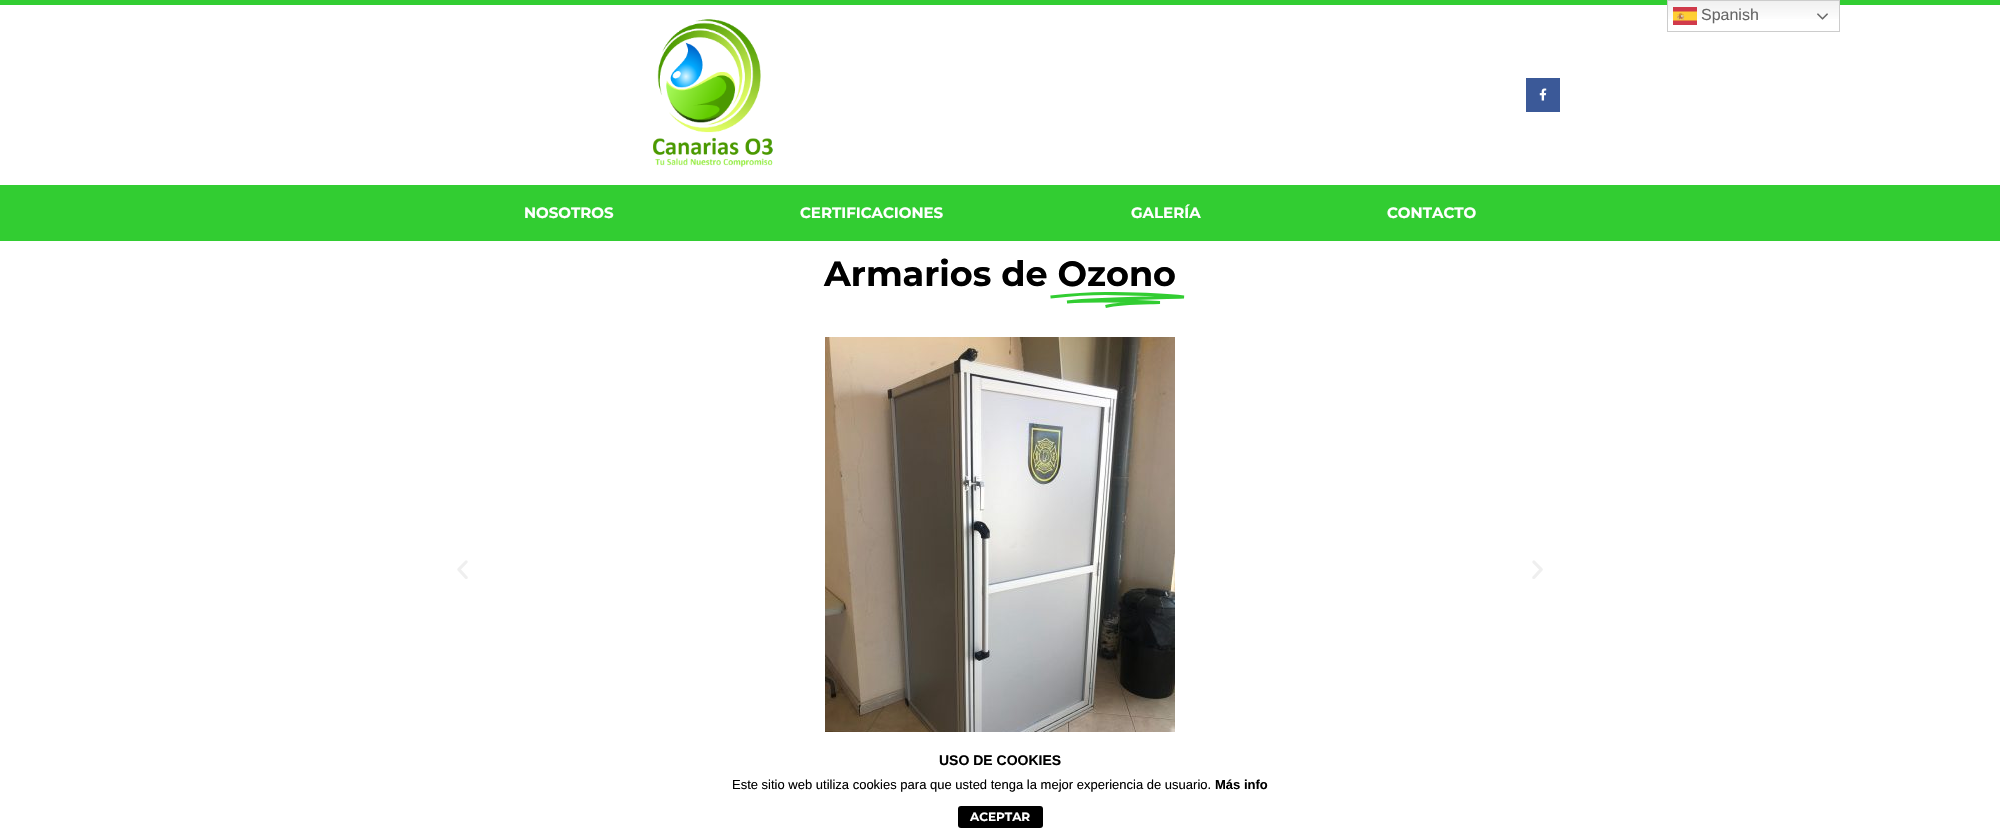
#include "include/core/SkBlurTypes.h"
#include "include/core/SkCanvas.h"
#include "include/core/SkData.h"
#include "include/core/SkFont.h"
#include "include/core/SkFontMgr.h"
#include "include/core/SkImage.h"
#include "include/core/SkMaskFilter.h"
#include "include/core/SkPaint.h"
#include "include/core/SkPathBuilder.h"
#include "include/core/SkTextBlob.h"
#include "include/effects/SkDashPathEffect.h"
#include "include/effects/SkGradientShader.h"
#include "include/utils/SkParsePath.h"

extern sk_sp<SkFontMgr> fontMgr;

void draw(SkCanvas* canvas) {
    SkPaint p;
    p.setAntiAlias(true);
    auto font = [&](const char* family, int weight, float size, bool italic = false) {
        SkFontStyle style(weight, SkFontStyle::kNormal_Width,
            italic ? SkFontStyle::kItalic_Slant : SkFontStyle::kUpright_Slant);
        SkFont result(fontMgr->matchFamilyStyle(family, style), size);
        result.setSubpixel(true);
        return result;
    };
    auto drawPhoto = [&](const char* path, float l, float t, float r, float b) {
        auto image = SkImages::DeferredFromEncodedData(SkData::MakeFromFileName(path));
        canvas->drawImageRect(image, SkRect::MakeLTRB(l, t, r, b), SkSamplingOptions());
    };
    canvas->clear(0xFFFFFFFF);
    p.setColor(0xFF32CD32);
    canvas->drawRect(SkRect::MakeLTRB(0, 0, 2000, 5), p);
    {
        const SkColor colors[] = {0xFFEFEFEF, 0xFFFFFFFF};
        const float stops[] = {0, 0.7f};
        const SkPoint ends[] = {{1754, 0}, {1754, 32}};
        p.setShader(SkGradientShader::MakeLinear(ends, colors, stops, 2, SkTileMode::kClamp));
        p.setAlpha(255);
    }
    canvas->drawRect(SkRect::MakeLTRB(1668, 1, 1839, 19), p);
    p.setStyle(SkPaint::kStroke_Style);
    p.setStrokeWidth(1);
    p.setShader(nullptr);
    p.setColor(0xFFCCCCCC);
    canvas->drawRect(SkRect::MakeLTRB(1667.5f, 0.5f, 1839.5f, 31.5f), p);
    drawPhoto("media/1.png", 1673, 7, 1697, 25);
    auto font1 = font("Liberation Sans", 400, 16);
    p.setStyle(SkPaint::kFill_Style);
    p.setColor(0xFF666666);
    canvas->drawString("Spanish", 1701, 20, font1, p);
    drawPhoto("media/2.png", 1817, 13, 1828, 20);
    drawPhoto("media/3.png", 653, 19, 773, 167);
    p.setColor(0xFF3B5998);
    canvas->drawRect(SkRect::MakeLTRB(1526, 78, 1560, 112), p);
    drawPhoto("media/4.png", 1539, 88, 1547, 101);
    p.setColor(0xFF32CD32);
    canvas->drawRect(SkRect::MakeLTRB(0, 185, 2000, 241), p);
    auto font2 = font("Montserrat", 700, 15);
    p.setColor(0xFFFFFFFF);
    {
        const struct { const char* s; float x, y; } items[] = {
            {"NOSOTROS", 524, 218},
            {"CERTIFICACIONES", 800, 218},
            {"GALERÍA", 1131, 218},
            {"CONTACTO", 1387, 218},
        };
        for (auto [s, x, y] : items) {
            canvas->drawString(s, x, y, font2, p);
        }
    }
    auto font3 = font("Montserrat", 700, 35);
    p.setColor(0xFF000000);
    canvas->drawString("Armarios de Ozono", 824, 286, font3, p);
    p.setStyle(SkPaint::kStroke_Style);
    p.setStrokeWidth(3.1f);
    p.setColor(0xFF32CD32);
    canvas->drawPath(SkPathBuilder().moveTo(1050.5f, 297).cubicTo(1064, 295.5f, 1092, 293.5f, 1105.5f, 293.5f).cubicTo(1139.5f, 294, 1158.5f, 294, 1184, 297).cubicTo(1153, 298, 1098, 298.5f, 1067, 302).cubicTo(1090, 300.5f, 1137.5f, 301.5f, 1160, 302.5f).cubicTo(1144.5f, 303, 1122, 302.5f, 1105.5f, 306.5f).detach(), p);
    drawPhoto("media/5.png", 457, 560, 468, 579);
    drawPhoto("media/6.png", 825, 337, 1175, 732);
    drawPhoto("media/7.png", 1532, 560, 1543, 579);
    auto font4 = font("Liberation Sans", 700, 14);
    p.setStyle(SkPaint::kFill_Style);
    p.setColor(0xFF000000);
    canvas->drawString("USO DE COOKIES", 939, 765, font4, p);
    auto font5 = font("Liberation Sans", 400, 13);
    canvas->drawString("Este sitio web utiliza cookies para que usted tenga la mejor experiencia de usuario.", 732, 789, font5, p);
    auto font6 = font("Liberation Sans", 700, 13);
    canvas->drawString("Más info", 1215, 789, font6, p);
    canvas->drawRoundRect(SkRect::MakeLTRB(958, 806, 1043, 828), 3, 3, p);
    auto font7 = font("Montserrat", 700, 12);
    p.setColor(0xFFFFFFFF);
    canvas->drawString("ACEPTAR", 970, 821, font7, p);
}
